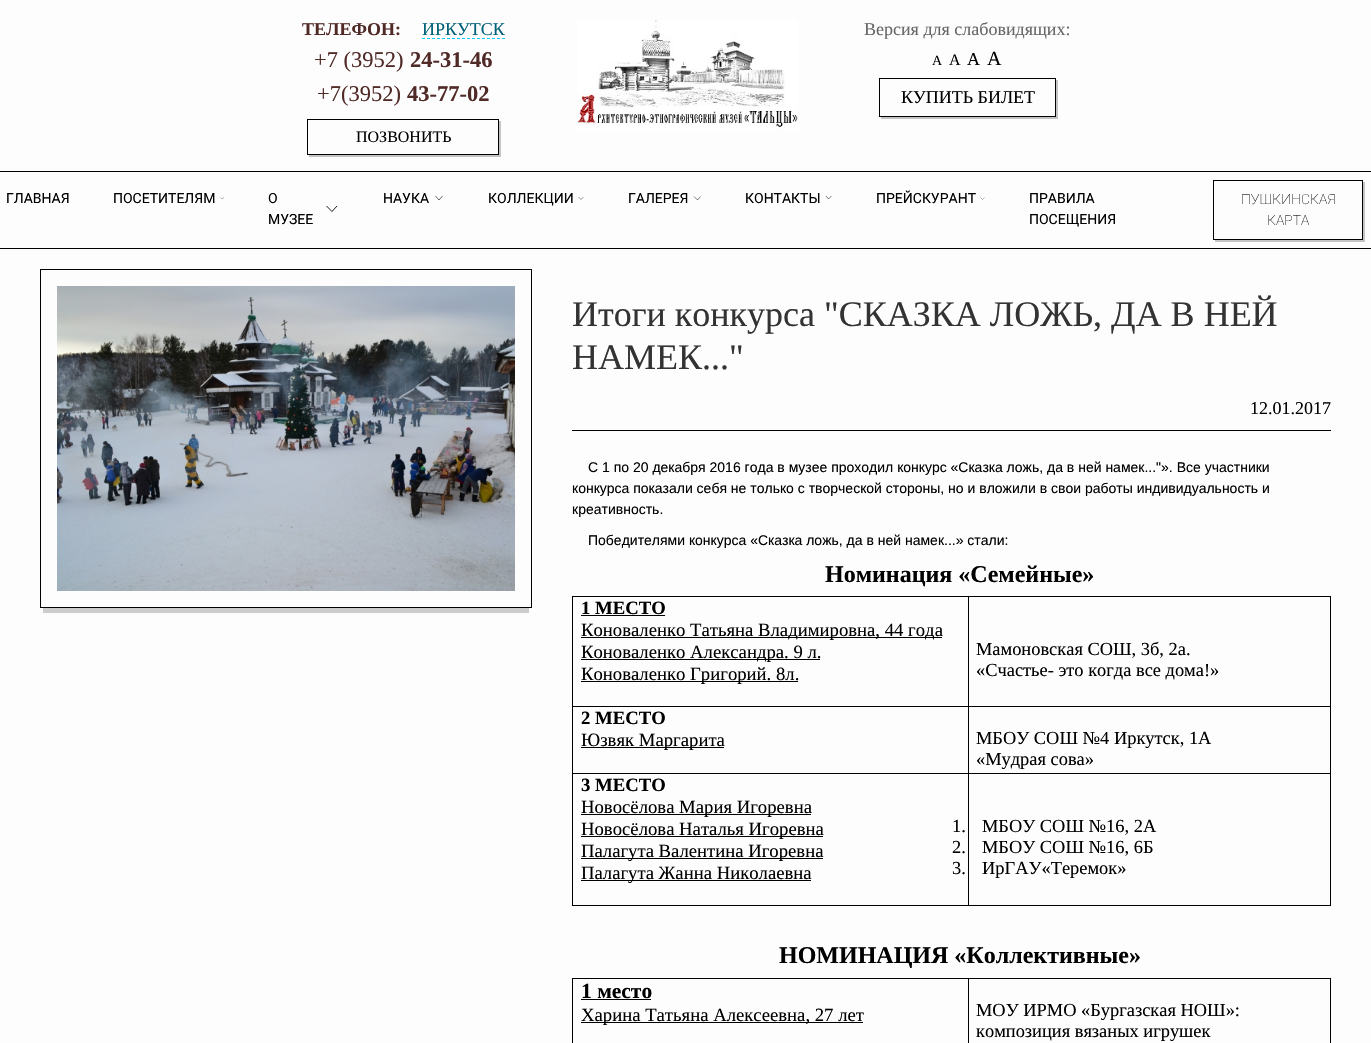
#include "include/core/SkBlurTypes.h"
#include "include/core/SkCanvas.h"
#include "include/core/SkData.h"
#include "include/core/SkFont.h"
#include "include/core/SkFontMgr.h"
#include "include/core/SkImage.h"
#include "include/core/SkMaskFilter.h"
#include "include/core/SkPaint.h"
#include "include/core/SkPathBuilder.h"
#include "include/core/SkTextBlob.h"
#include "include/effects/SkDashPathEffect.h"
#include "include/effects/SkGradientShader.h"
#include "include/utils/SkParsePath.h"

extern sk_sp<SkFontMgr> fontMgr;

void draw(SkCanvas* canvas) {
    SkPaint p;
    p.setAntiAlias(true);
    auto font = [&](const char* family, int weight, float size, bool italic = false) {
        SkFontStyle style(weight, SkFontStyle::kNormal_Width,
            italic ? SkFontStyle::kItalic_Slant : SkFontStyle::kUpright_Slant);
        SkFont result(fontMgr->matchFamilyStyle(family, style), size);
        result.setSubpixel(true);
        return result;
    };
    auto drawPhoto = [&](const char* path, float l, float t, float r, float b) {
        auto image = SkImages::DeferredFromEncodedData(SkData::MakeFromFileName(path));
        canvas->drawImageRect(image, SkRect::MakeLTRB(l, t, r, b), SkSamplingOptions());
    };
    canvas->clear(0xFFFDFDFD);
    p.setColor(0xFF000000);
    canvas->drawRect(SkRect::MakeLTRB(0, 171, 1371, 172), p);
    auto font1 = font("Liberation Serif", 700, 18);
    p.setColor(0xFF502A26);
    canvas->drawString("ТЕЛЕФОН:", 302, 35, font1, p);
    p.setStyle(SkPaint::kStroke_Style);
    p.setStrokeWidth(1);
    p.setColor(0xFF00CCFF);
    p.setPathEffect(SkDashPathEffect::Make({{3, 2}}, 0));
    canvas->drawPath(SkPathBuilder().moveTo(422, 38.5f).lineTo(505, 38.5f).detach(), p);
    p.setPathEffect(nullptr);
    auto font2 = font("Liberation Serif", 400, 18);
    p.setStyle(SkPaint::kFill_Style);
    p.setColor(0xFF006078);
    canvas->drawString("ИРКУТСК", 422, 35, font2, p);
    auto font3 = font("Liberation Serif", 400, 22.5f);
    p.setColor(0xFF502A26);
    canvas->drawString("+7 (3952)", 314, 67, font3, p);
    auto font4 = font("Liberation Serif", 700, 22.5f);
    canvas->drawString("24-31-46", 410, 67, font4, p);
    canvas->drawString("+7(3952)", 317, 101, font3, p);
    canvas->drawString("43-77-02", 407, 101, font4, p);
    p.setColor(0xFFC4C4C4);
    canvas->drawPath(SkPathBuilder().moveTo(309, 155).lineTo(309, 157).lineTo(501, 157).lineTo(501, 121).lineTo(499, 121).lineTo(499, 155).close().detach(), p);
    p.setStyle(SkPaint::kStroke_Style);
    p.setColor(0xFF000000);
    canvas->drawRect(SkRect::MakeLTRB(307.5f, 119.5f, 498.5f, 154.5f), p);
    auto font5 = font("Liberation Serif", 400, 16);
    p.setStyle(SkPaint::kFill_Style);
    canvas->drawString("ПОЗВОНИТЬ", 356, 142, font5, p);
    drawPhoto("media/1.png", 577, 20, 798, 131);
    p.setColor(0xFF666666);
    canvas->drawString("Версия для слабовидящих:", 864, 35, font2, p);
    auto font6 = font("Liberation Serif", 400, 14);
    p.setColor(0xFF000000);
    canvas->drawString("A", 932, 65, font6, p);
    canvas->drawString("A", 949, 65, font5, p);
    canvas->drawString("A", 967, 65, font2, p);
    auto font7 = font("Liberation Serif", 400, 20);
    canvas->drawString("A", 987, 65, font7, p);
    p.setColor(0xFFC4C4C4);
    canvas->drawPath(SkPathBuilder().moveTo(881, 117).lineTo(881, 119).lineTo(1058, 119).lineTo(1058, 80).lineTo(1056, 80).lineTo(1056, 117).close().detach(), p);
    p.setStyle(SkPaint::kStroke_Style);
    p.setColor(0xFF000000);
    canvas->drawRect(SkRect::MakeLTRB(879.5f, 78.5f, 1055.5f, 116.5f), p);
    p.setStyle(SkPaint::kFill_Style);
    canvas->drawString("КУПИТЬ БИЛЕТ", 901, 103, font2, p);
    canvas->drawRect(SkRect::MakeLTRB(0, 248, 1371, 249), p);
    auto font8 = font("Roboto", 400, 14);
    canvas->drawString("ГЛАВНАЯ", 6, 203, font8, p);
    canvas->drawString("ПОСЕТИТЕЛЯМ", 113, 203, font8, p);
    p.setStyle(SkPaint::kStroke_Style);
    p.setStrokeWidth(0.3f);
    canvas->drawPath(SkPathBuilder().moveTo(224, 197.5f).lineTo(222, 199).lineTo(220.5f, 197.5f).detach(), p);
    p.setStyle(SkPaint::kFill_Style);
    canvas->drawString("О", 268, 203, font8, p);
    p.setStyle(SkPaint::kStroke_Style);
    p.setStrokeWidth(0.9f);
    canvas->drawPath(SkPathBuilder().moveTo(337, 206).lineTo(332, 211.5f).lineTo(326.5f, 206).detach(), p);
    p.setStyle(SkPaint::kFill_Style);
    canvas->drawString("МУЗЕЕ", 268, 224, font8, p);
    canvas->drawString("НАУКА", 383, 203, font8, p);
    p.setStyle(SkPaint::kStroke_Style);
    p.setStrokeWidth(0.6f);
    canvas->drawPath(SkPathBuilder().moveTo(442.5f, 196).lineTo(439, 200).lineTo(435.5f, 196).detach(), p);
    p.setStyle(SkPaint::kFill_Style);
    canvas->drawString("КОЛЛЕКЦИИ", 488, 203, font8, p);
    p.setStyle(SkPaint::kStroke_Style);
    p.setStrokeWidth(0.4f);
    canvas->drawPath(SkPathBuilder().moveTo(583.5f, 197).lineTo(581, 199.5f).lineTo(578.5f, 197).detach(), p);
    p.setStyle(SkPaint::kFill_Style);
    canvas->drawString("ГАЛЕРЕЯ", 628, 203, font8, p);
    p.setStyle(SkPaint::kStroke_Style);
    p.setStrokeWidth(0.5f);
    canvas->drawPath(SkPathBuilder().moveTo(700.5f, 196.5f).lineTo(697.5f, 200).lineTo(694, 196.5f).detach(), p);
    p.setStyle(SkPaint::kFill_Style);
    canvas->drawString("КОНТАКТЫ", 745, 203, font8, p);
    p.setStyle(SkPaint::kStroke_Style);
    canvas->drawPath(SkPathBuilder().moveTo(831.5f, 196).lineTo(828.5f, 199).lineTo(826, 196).detach(), p);
    p.setStyle(SkPaint::kFill_Style);
    canvas->drawString("ПРЕЙСКУРАНТ", 876, 203, font8, p);
    p.setStyle(SkPaint::kStroke_Style);
    p.setStrokeWidth(0.3f);
    canvas->drawPath(SkPathBuilder().moveTo(984.5f, 197.5f).lineTo(982.5f, 199.5f).lineTo(980.5f, 197.5f).detach(), p);
    p.setStyle(SkPaint::kFill_Style);
    canvas->drawString("ПРАВИЛА", 1029, 203, font8, p);
    canvas->drawString("ПОСЕЩЕНИЯ", 1029, 224, font8, p);
    p.setColor(0xFFC4C4C4);
    canvas->drawPath(SkPathBuilder().moveTo(1215, 240).lineTo(1215, 242).lineTo(1365, 242).lineTo(1365, 182).lineTo(1363, 182).lineTo(1363, 240).close().detach(), p);
    p.setStyle(SkPaint::kStroke_Style);
    p.setStrokeWidth(1);
    p.setColor(0xFF000000);
    canvas->drawRect(SkRect::MakeLTRB(1213.5f, 180.5f, 1362.5f, 239.5f), p);
    auto font9 = font("Roboto", 100, 14);
    p.setStyle(SkPaint::kFill_Style);
    canvas->drawString("ПУШКИНСКАЯ", 1241, 204, font9, p);
    canvas->drawString("КАРТА", 1267, 225, font9, p);
    p.setColor(0xFFCCCCCC);
    canvas->drawRect(SkRect::MakeLTRB(43, 608, 529, 613), p);
    p.setStyle(SkPaint::kStroke_Style);
    p.setColor(0xFF000000);
    canvas->drawRect(SkRect::MakeLTRB(40.5f, 269.5f, 531.5f, 607.5f), p);
    drawPhoto("media/2.png", 57, 286, 515, 591);
    auto font10 = font("Liberation Serif", 400, 36);
    p.setStyle(SkPaint::kFill_Style);
    p.setColor(0xFF333333);
    canvas->drawString("Итоги конкурса \"СКАЗКА ЛОЖЬ, ДА В НЕЙ", 572, 326, font10, p);
    canvas->drawString("НАМЕК...\"", 572, 369, font10, p);
    p.setColor(0xFF000000);
    canvas->drawRect(SkRect::MakeLTRB(572, 430, 1331, 431), p);
    canvas->drawString("12.01.2017", 1250, 414, font2, p);
    auto font11 = font("Liberation Sans", 400, 14);
    {
        const struct { const char* s; float x, y; } items[] = {
            {"С 1 по 20 декабря 2016 года в музее проходил конкурс «Сказка ложь, да в ней намек...\"». Все участники", 588, 472},
            {"конкурса показали себя не только с творческой стороны, но и вложили в свои работы индивидуальность и", 572, 493},
            {"креативность.", 572, 514},
            {"Победителями конкурса «Сказка ложь, да в ней намек...» стали:", 588, 545},
        };
        for (auto [s, x, y] : items) {
            canvas->drawString(s, x, y, font11, p);
        }
    }
    auto font12 = font("Liberation Serif", 700, 24);
    canvas->drawString("Номинация «Семейные»", 825, 582, font12, p);
    {
        const struct { float l, t, r, b; SkColor color; } items[] = {
            {572, 596, 1331, 597, 0xFF000000},
            {1330, 706, 1331, 906, 0xFF000000},
            {1330, 596, 1331, 707, 0xFF000000},
            {968, 905, 1331, 906, 0xFF000000},
            {968, 773, 969, 906, 0xFF000000},
            {968, 773, 1331, 774, 0xFF000000},
            {968, 706, 969, 774, 0xFF000000},
            {968, 706, 1331, 707, 0xFF000000},
            {968, 596, 969, 707, 0xFF000000},
            {572, 905, 969, 906, 0xFF000000},
            {572, 773, 573, 906, 0xFF000000},
            {572, 773, 969, 774, 0xFF000000},
            {572, 706, 573, 774, 0xFF000000},
            {572, 706, 969, 707, 0xFF000000},
            {572, 596, 573, 707, 0xFF000000},
        };
        for (auto [l, t, r, b, color] : items) {
            p.setColor(color);
            canvas->drawRect(SkRect::MakeLTRB(l, t, r, b), p);
        }
    }
    auto font13 = font("Liberation Serif", 700, 18.7f);
    canvas->drawString("1 МЕСТО", 581, 614, font13, p);
    canvas->drawRect(SkRect::MakeLTRB(581, 615, 665, 616), p);
    canvas->drawRect(SkRect::MakeLTRB(581, 637, 942, 638), p);
    auto font14 = font("Liberation Serif", 400, 18.7f);
    canvas->drawString("Коноваленко Татьяна Владимировна, 44 года", 581, 636, font14, p);
    canvas->drawRect(SkRect::MakeLTRB(581, 659, 820, 660), p);
    canvas->drawString("Коноваленко Александра. 9 л.", 581, 658, font14, p);
    canvas->drawRect(SkRect::MakeLTRB(581, 681, 798, 682), p);
    canvas->drawString("Коноваленко Григорий. 8л.", 581, 680, font14, p);
    auto font15 = font("Liberation Serif", 400, 18.4f);
    canvas->drawString("Мамоновская СОШ, 3б, 2а.", 976, 655, font15, p);
    canvas->drawString("«Счастье- это когда все дома!»", 976, 676, font15, p);
    canvas->drawString("2 МЕСТО", 581, 724, font13, p);
    canvas->drawRect(SkRect::MakeLTRB(581, 747, 724, 748), p);
    canvas->drawString("Юзвяк Маргарита", 581, 746, font14, p);
    canvas->drawString("МБОУ СОШ №4 Иркутск, 1А", 976, 744, font15, p);
    canvas->drawString("«Мудрая сова»", 976, 765, font15, p);
    canvas->drawString("3 МЕСТО", 581, 791, font13, p);
    canvas->drawRect(SkRect::MakeLTRB(581, 814, 811, 815), p);
    canvas->drawString("Новосёлова Мария Игоревна", 581, 813, font14, p);
    canvas->drawRect(SkRect::MakeLTRB(581, 836, 823, 837), p);
    canvas->drawString("Новосёлова Наталья Игоревна", 581, 835, font14, p);
    canvas->drawRect(SkRect::MakeLTRB(581, 858, 823, 859), p);
    canvas->drawString("Палагута Валентина Игоревна", 581, 857, font14, p);
    canvas->drawRect(SkRect::MakeLTRB(581, 880, 811, 881), p);
    canvas->drawString("Палагута Жанна Николаевна", 581, 879, font14, p);
    {
        const struct { const char* s; float x, y; } items[] = {
            {"1.", 952, 832},
            {"МБОУ СОШ №16, 2А", 982, 832},
            {"2.", 952, 853},
            {"МБОУ СОШ №16, 6Б", 982, 853},
            {"3.", 952, 874},
            {"ИрГАУ«Теремок»", 982, 874},
        };
        for (auto [s, x, y] : items) {
            canvas->drawString(s, x, y, font15, p);
        }
    }
    canvas->drawString("НОМИНАЦИЯ «Коллективные»", 779, 963, font12, p);
    {
        const struct { float l, t, r, b; SkColor color; } items[] = {
            {572, 978, 1331, 979, 0xFF000000},
            {968, 978, 969, 1043, 0xFF000000},
            {572, 978, 573, 1043, 0xFF000000},
        };
        for (auto [l, t, r, b, color] : items) {
            p.setColor(color);
            canvas->drawRect(SkRect::MakeLTRB(l, t, r, b), p);
        }
    }
    auto font16 = font("Liberation Serif", 700, 21.5f);
    canvas->drawString("1 место", 581, 998, font16, p);
    canvas->drawRect(SkRect::MakeLTRB(581, 999, 651, 1000), p);
    canvas->drawRect(SkRect::MakeLTRB(581, 1022, 863, 1023), p);
    canvas->drawString("Харина Татьяна Алексеевна, 27 лет", 581, 1021, font14, p);
    canvas->drawRect(SkRect::MakeLTRB(1330, 978, 1331, 1043), p);
    canvas->drawString("МОУ ИРМО «Бургазская НОШ»:", 976, 1016, font15, p);
    canvas->drawString("композиция вязаных игрушек", 976, 1037, font15, p);
}
